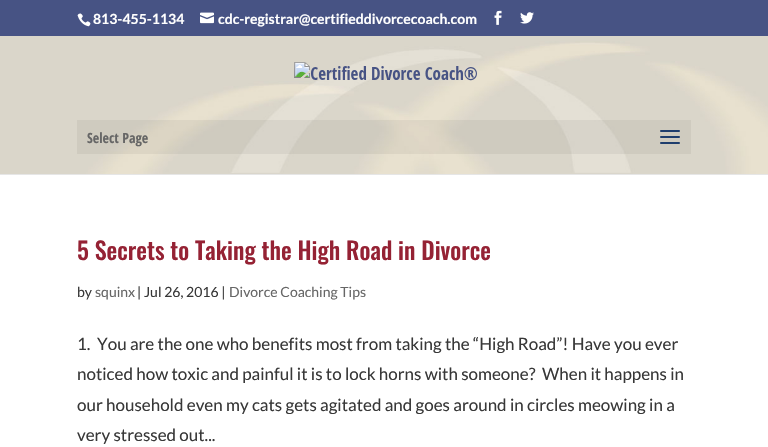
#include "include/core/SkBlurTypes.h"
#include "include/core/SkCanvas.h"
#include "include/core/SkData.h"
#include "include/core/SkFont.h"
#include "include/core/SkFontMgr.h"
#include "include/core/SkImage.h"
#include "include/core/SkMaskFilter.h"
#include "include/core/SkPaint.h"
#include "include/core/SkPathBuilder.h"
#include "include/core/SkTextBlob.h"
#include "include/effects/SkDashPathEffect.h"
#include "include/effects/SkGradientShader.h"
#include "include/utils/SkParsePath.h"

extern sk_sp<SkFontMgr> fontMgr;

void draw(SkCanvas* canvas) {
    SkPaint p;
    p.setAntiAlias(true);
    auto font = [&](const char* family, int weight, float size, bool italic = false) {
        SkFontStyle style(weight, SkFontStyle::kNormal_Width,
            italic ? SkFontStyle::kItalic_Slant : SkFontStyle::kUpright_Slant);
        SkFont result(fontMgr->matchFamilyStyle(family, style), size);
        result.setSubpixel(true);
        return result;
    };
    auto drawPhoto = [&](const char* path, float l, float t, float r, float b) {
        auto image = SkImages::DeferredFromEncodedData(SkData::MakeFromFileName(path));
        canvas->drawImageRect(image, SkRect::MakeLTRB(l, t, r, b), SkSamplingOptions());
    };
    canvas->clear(0xFFFFFFFF);
    p.setColor(0xFF475384);
    canvas->drawRect(SkRect::MakeLTRB(0, 0, 768, 36), p);
    drawPhoto("media/1.png", 77, 13, 91, 27);
    auto font1 = font("Lato", 700, 14);
    p.setColor(0xFFFFFFFF);
    canvas->drawString("813-455-1134", 93, 24, font1, p);
    drawPhoto("media/2.png", 200, 12, 214, 24);
    canvas->drawString("cdc-registrar@certifieddivorcecoach.com", 218, 24, font1, p);
    drawPhoto("media/3.png", 494, 10, 502, 25);
    drawPhoto("media/4.png", 520, 12, 534, 24);
    p.setColor(0xFFE6E6E6);
    canvas->drawRect(SkRect::MakeLTRB(0, 174, 768, 175), p);
    drawPhoto("media/5.png", 0, 36, 768, 174);
    drawPhoto("media/6.png", 294, 62, 477, 81);
    p.setColor(0x0D000000);
    canvas->drawRect(SkRect::MakeLTRB(77, 120, 691, 154), p);
    auto font2 = font("Open Sans Condensed", 700, 14);
    p.setColor(0xFF666666);
    canvas->drawString("Select Page", 87, 143, font2, p);
    drawPhoto("media/7.png", 660, 130, 680, 144);
    auto font3 = font("Oswald", 500, 24);
    p.setColor(0xFF952234);
    canvas->drawString("5 Secrets to Taking the High Road in Divorce", 77, 260, font3, p);
    auto font4 = font("Lato", 400, 14);
    p.setColor(0xFF383838);
    canvas->drawString("by", 77, 297, font4, p);
    p.setColor(0xFF666666);
    canvas->drawString("squinx", 95, 297, font4, p);
    p.setColor(0xFF383838);
    canvas->drawString("| Jul 26, 2016 |", 137, 297, font4, p);
    p.setColor(0xFF666666);
    canvas->drawString("Divorce Coaching Tips", 229, 297, font4, p);
    auto font5 = font("Lato", 400, 17);
    p.setColor(0xFF383838);
    {
        const struct { const char* s; float x, y; } items[] = {
            {"1.  You are the one who benefits most from taking the “High Road”! Have you ever", 77, 350},
            {"noticed how toxic and painful it is to lock horns with someone?  When it happens in", 77, 380},
            {"our household even my cats gets agitated and goes around in circles meowing in a", 77, 411},
            {"very stressed out...", 77, 441},
        };
        for (auto [s, x, y] : items) {
            canvas->drawString(s, x, y, font5, p);
        }
    }
}
